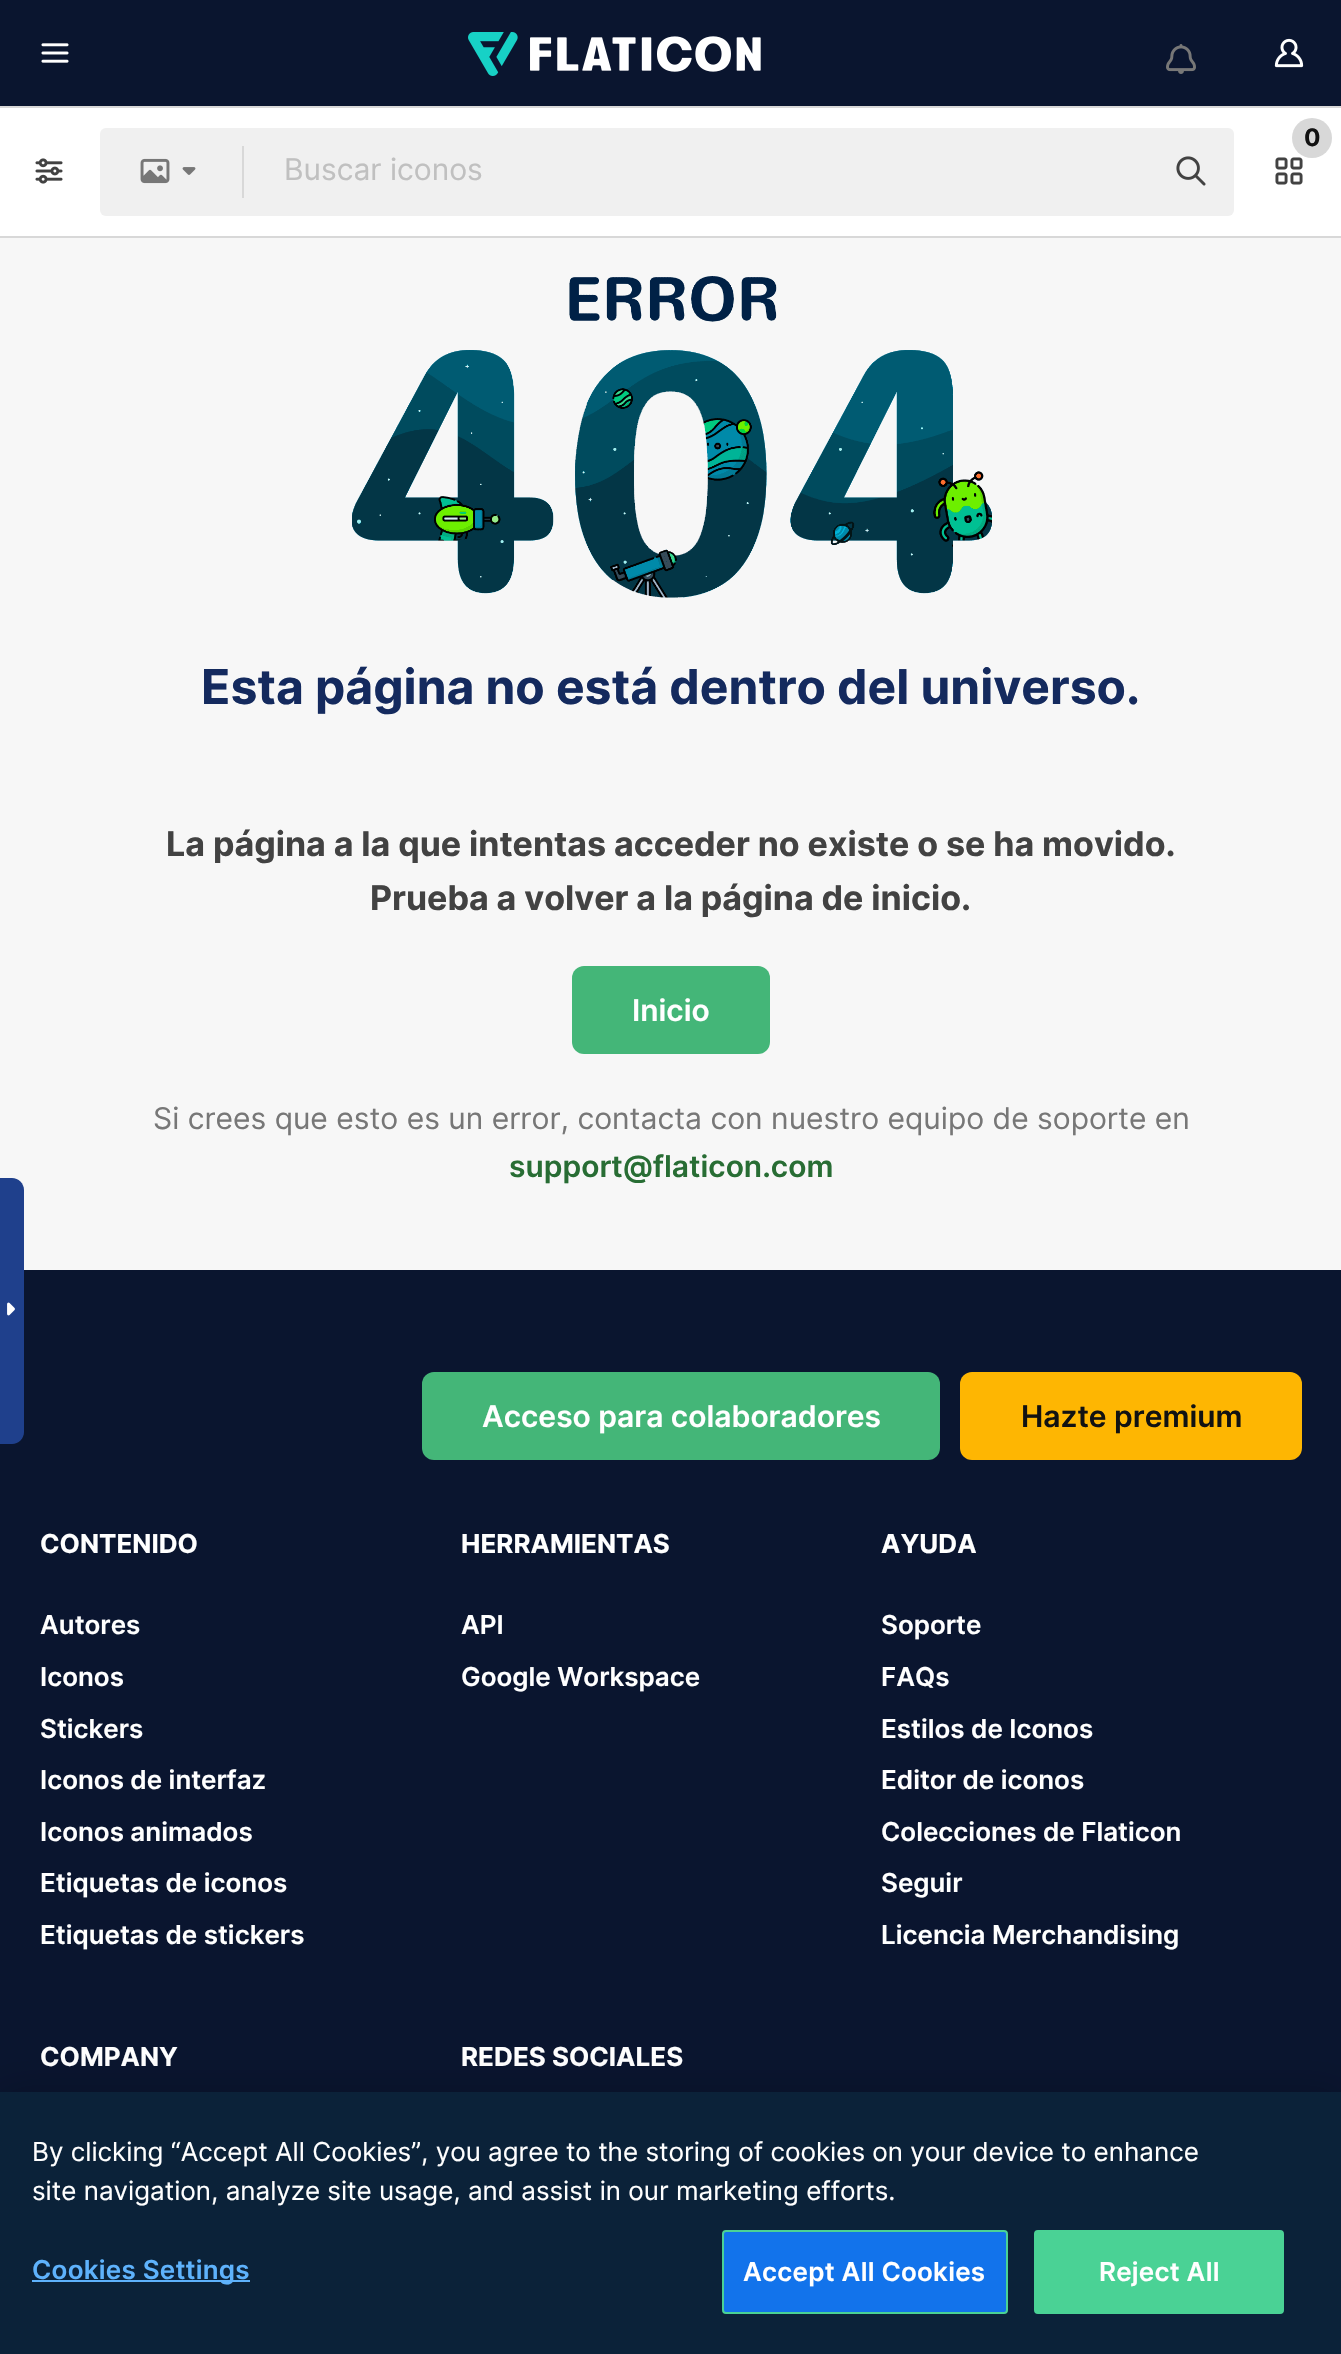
#include "include/core/SkBlurTypes.h"
#include "include/core/SkCanvas.h"
#include "include/core/SkData.h"
#include "include/core/SkFont.h"
#include "include/core/SkFontMgr.h"
#include "include/core/SkImage.h"
#include "include/core/SkMaskFilter.h"
#include "include/core/SkPaint.h"
#include "include/core/SkPathBuilder.h"
#include "include/core/SkTextBlob.h"
#include "include/effects/SkDashPathEffect.h"
#include "include/effects/SkGradientShader.h"
#include "include/utils/SkParsePath.h"

extern sk_sp<SkFontMgr> fontMgr;

void draw(SkCanvas* canvas) {
    SkPaint p;
    p.setAntiAlias(true);
    auto font = [&](const char* family, int weight, float size, bool italic = false) {
        SkFontStyle style(weight, SkFontStyle::kNormal_Width,
            italic ? SkFontStyle::kItalic_Slant : SkFontStyle::kUpright_Slant);
        SkFont result(fontMgr->matchFamilyStyle(family, style), size);
        result.setSubpixel(true);
        return result;
    };
    auto drawTracked = [&](const char* s, float x, float y, const SkFont& font, const SkPaint& ink, float letter, float word) {
        std::vector<SkGlyphID> glyphs(font.countText(s, strlen(s), SkTextEncoding::kUTF8));
        std::vector<float> xs(glyphs.size());
        font.textToGlyphs(s, strlen(s), SkTextEncoding::kUTF8, glyphs);
        font.getXPos(glyphs, xs, x);
        float extra = 0;
        for (size_t i = 0; i < glyphs.size(); i++) {
            xs[i] += extra;
            extra += letter + word * (glyphs[i] == font.unicharToGlyph(' '));
        }
        canvas->drawTextBlob(SkTextBlob::MakeFromPosHGlyphs(glyphs, xs, y, font), 0, 0, ink);
    };
    auto drawPhoto = [&](const char* path, float l, float t, float r, float b) {
        auto image = SkImages::DeferredFromEncodedData(SkData::MakeFromFileName(path));
        canvas->drawImageRect(image, SkRect::MakeLTRB(l, t, r, b), SkSamplingOptions());
    };
    canvas->clear(0xFFFFFFFF);
    p.setColor(0xFFF7F7F7);
    canvas->drawRect(SkRect::MakeLTRB(0, 238, 1341, 1270), p);
    p.setColor(0xFF0A152F);
    canvas->drawRect(SkRect::MakeLTRB(0, 1270, 1341, 2092), p);
    p.setColor(0xFF1F408C);
    canvas->drawPath(SkPathBuilder().moveTo(0, 1178).lineTo(12, 1178).cubicTo(18.5f, 1178, 24, 1183.5f, 24, 1190).lineTo(24, 1432).cubicTo(24, 1438.5f, 18.5f, 1444, 12, 1444).lineTo(0, 1444).close().detach(), p);
    drawPhoto("media/1.png", 7, 1302, 15, 1316);
    p.setColor(0xFF0A152F);
    canvas->drawRect(SkRect::MakeLTRB(0, 0, 1341, 106), p);
    drawPhoto("media/2.png", 41, 43, 69, 63);
    drawPhoto("media/3.png", 468, 32, 761, 76);
    drawPhoto("media/4.png", 1166, 44, 1196, 74);
    drawPhoto("media/5.png", 1274, 38, 1304, 68);
    p.setStyle(SkPaint::kStroke_Style);
    p.setStrokeWidth(2);
    p.setColor(0xFFD8D8D8);
    canvas->drawRect(SkRect::MakeLTRB(-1, 107, 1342, 237), p);
    drawPhoto("media/6.png", 1275, 157, 1303, 185);
    p.setStyle(SkPaint::kFill_Style);
    canvas->drawCircle(1312, 138, 20, p);
    auto font1 = font("Inter", 700, 24);
    p.setColor(0xFF121212);
    canvas->drawString("0", 1304, 146, font1, p);
    drawPhoto("media/7.png", 35, 158, 63, 184);
    p.setColor(0xFFF0F0F0);
    canvas->drawRoundRect(SkRect::MakeLTRB(100, 128, 1234, 216), 6, 6, p);
    drawPhoto("media/8.png", 140, 158, 170, 184);
    drawPhoto("media/9.png", 182, 167, 196, 175);
    p.setColor(0xFFD8D8D8);
    canvas->drawRect(SkRect::MakeLTRB(242, 146, 244, 198), p);
    auto font2 = font("Inter", 400, 30);
    p.setColor(0xFFC0C0C0);
    canvas->drawString("Buscar iconos", 284, 180, font2, p);
    drawPhoto("media/10.png", 1176, 156, 1206, 186);
    drawPhoto("media/11.png", 352, 276, 992, 598);
    auto font3 = font("Inter", 700, 48);
    p.setColor(0xFF142A5E);
    canvas->drawString("Esta página no está dentro del universo.", 201, 704, font3, p);
    auto font4 = font("Inter", 700, 34);
    p.setColor(0xFF424242);
    canvas->drawString("La página a la que intentas acceder no existe o se ha movido.", 166, 856, font4, p);
    canvas->drawString("Prueba a volver a la página de inicio.", 370, 910, font4, p);
    p.setColor(0xFF44B678);
    canvas->drawRoundRect(SkRect::MakeLTRB(572, 966, 770, 1054), 12, 12, p);
    auto font5 = font("Inter", 600, 30);
    p.setColor(0xFFFFFFFF);
    canvas->drawString("Inicio", 632, 1021, font5, p);
    p.setColor(0xFF777777);
    canvas->drawString("Si crees que esto es un error, contacta con nuestro equipo de soporte en", 153, 1129, font2, p);
    p.setColor(0xFF286D34);
    canvas->drawString("support@flaticon.com", 509, 1177, font5, p);
    p.setColor(0xFF44B678);
    canvas->drawRoundRect(SkRect::MakeLTRB(422, 1372, 940, 1460), 12, 12, p);
    p.setColor(0xFFFFFFFF);
    canvas->drawString("Acceso para colaboradores", 482, 1427, font5, p);
    p.setColor(0xFFFEB602);
    canvas->drawRoundRect(SkRect::MakeLTRB(960, 1372, 1302, 1460), 12, 12, p);
    p.setColor(0xFF121212);
    canvas->drawString("Hazte premium", 1021, 1427, font5, p);
    auto font6 = font("Inter", 700, 26);
    p.setColor(0xFFFFFFFF);
    canvas->drawString("CONTENIDO", 40, 1553, font6, p);
    auto font7 = font("Inter", 600, 26);
    {
        const struct { const char* s; float x, y; } items[] = {
            {"Autores", 40, 1634},
            {"Iconos", 40, 1686},
            {"Stickers", 40, 1738},
            {"Iconos de interfaz", 40, 1789},
            {"Iconos animados", 40, 1841},
            {"Etiquetas de iconos", 40, 1892},
            {"Etiquetas de stickers", 40, 1944},
        };
        for (auto [s, x, y] : items) {
            canvas->drawString(s, x, y, font7, p);
        }
    }
    canvas->drawString("HERRAMIENTAS", 461, 1553, font6, p);
    canvas->drawString("API", 461, 1634, font7, p);
    canvas->drawString("Google Workspace", 461, 1686, font7, p);
    canvas->drawString("AYUDA", 881, 1553, font6, p);
    {
        const struct { const char* s; float x, y; } items[] = {
            {"Soporte", 881, 1634},
            {"FAQs", 881, 1686},
            {"Estilos de Iconos", 881, 1738},
            {"Editor de iconos", 881, 1789},
            {"Colecciones de Flaticon", 881, 1841},
            {"Seguir", 881, 1892},
            {"Licencia Merchandising", 881, 1944},
        };
        for (auto [s, x, y] : items) {
            canvas->drawString(s, x, y, font7, p);
        }
    }
    canvas->drawString("COMPANY", 40, 2066, font6, p);
    canvas->drawString("REDES SOCIALES", 461, 2066, font6, p);
    p.setColor(0x33000000);
    p.setMaskFilter(SkMaskFilter::MakeBlur(kNormal_SkBlurStyle, 18));
    canvas->drawRect(SkRect::MakeLTRB(0, 2092, 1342, 2354), p);
    p.setMaskFilter(nullptr);
    p.setColor(0xFF0B2239);
    canvas->drawRect(SkRect::MakeLTRB(0, 2092, 1341, 2354), p);
    auto font8 = font("Inter", 400, 26);
    p.setColor(0xFFFFFFFF);
    canvas->drawString("By clicking “Accept All Cookies”, you agree to the storing of cookies on your device to enhance", 32, 2161, font8, p);
    canvas->drawString("site navigation, analyze site usage, and assist in our marketing efforts.", 32, 2200, font8, p);
    p.setColor(0xFF5EB2FC);
    canvas->drawRect(SkRect::MakeLTRB(32, 2280, 250, 2282), p);
    drawTracked("Cookies Settings", 32, 2279, font7, p, 0.25f, 0);
    p.setColor(0xFF1273EB);
    canvas->drawRoundRect(SkRect::MakeLTRB(723, 2231, 1007, 2313), 3, 3, p);
    p.setStyle(SkPaint::kStroke_Style);
    p.setColor(0xFF4AD295);
    canvas->drawRoundRect(SkRect::MakeLTRB(723, 2231, 1007, 2313), 3, 3, p);
    p.setStyle(SkPaint::kFill_Style);
    p.setColor(0xFFFFFFFF);
    drawTracked("Accept All Cookies", 743, 2281, font7, p, 0.25f, 0);
    p.setColor(0xFF4AD295);
    canvas->drawRoundRect(SkRect::MakeLTRB(1035, 2231, 1283, 2313), 3, 3, p);
    p.setStyle(SkPaint::kStroke_Style);
    canvas->drawRoundRect(SkRect::MakeLTRB(1035, 2231, 1283, 2313), 3, 3, p);
    p.setStyle(SkPaint::kFill_Style);
    p.setColor(0xFFFFFFFF);
    drawTracked("Reject All", 1099, 2281, font7, p, 0.25f, 0);
}
